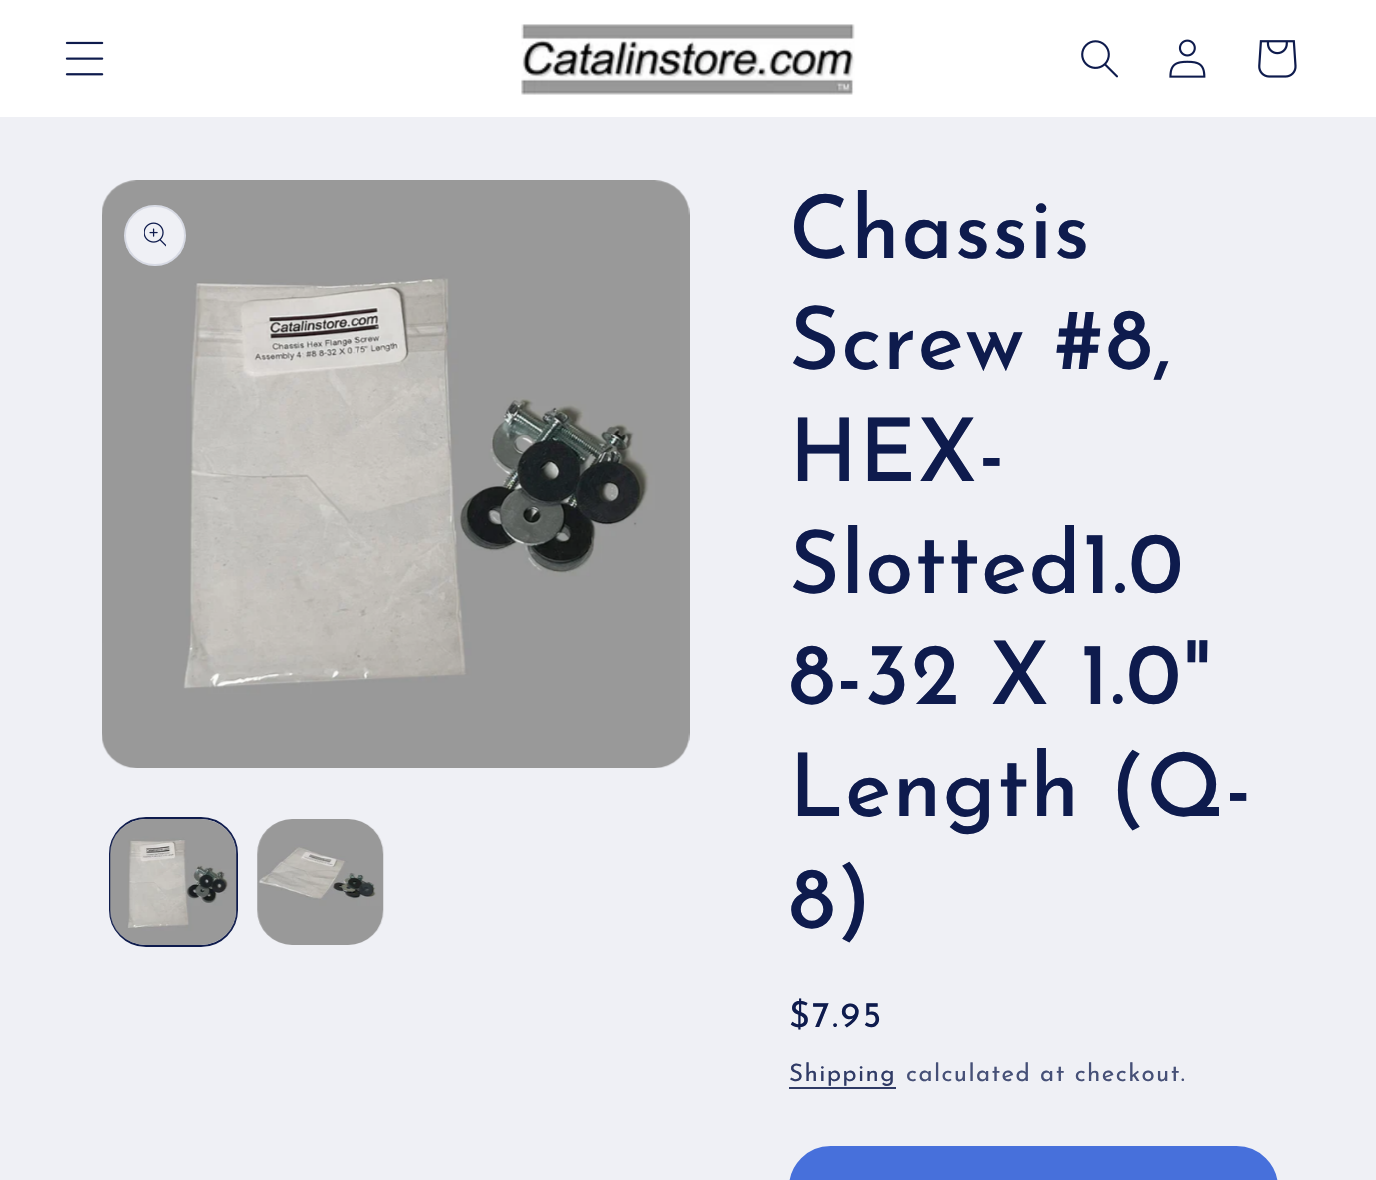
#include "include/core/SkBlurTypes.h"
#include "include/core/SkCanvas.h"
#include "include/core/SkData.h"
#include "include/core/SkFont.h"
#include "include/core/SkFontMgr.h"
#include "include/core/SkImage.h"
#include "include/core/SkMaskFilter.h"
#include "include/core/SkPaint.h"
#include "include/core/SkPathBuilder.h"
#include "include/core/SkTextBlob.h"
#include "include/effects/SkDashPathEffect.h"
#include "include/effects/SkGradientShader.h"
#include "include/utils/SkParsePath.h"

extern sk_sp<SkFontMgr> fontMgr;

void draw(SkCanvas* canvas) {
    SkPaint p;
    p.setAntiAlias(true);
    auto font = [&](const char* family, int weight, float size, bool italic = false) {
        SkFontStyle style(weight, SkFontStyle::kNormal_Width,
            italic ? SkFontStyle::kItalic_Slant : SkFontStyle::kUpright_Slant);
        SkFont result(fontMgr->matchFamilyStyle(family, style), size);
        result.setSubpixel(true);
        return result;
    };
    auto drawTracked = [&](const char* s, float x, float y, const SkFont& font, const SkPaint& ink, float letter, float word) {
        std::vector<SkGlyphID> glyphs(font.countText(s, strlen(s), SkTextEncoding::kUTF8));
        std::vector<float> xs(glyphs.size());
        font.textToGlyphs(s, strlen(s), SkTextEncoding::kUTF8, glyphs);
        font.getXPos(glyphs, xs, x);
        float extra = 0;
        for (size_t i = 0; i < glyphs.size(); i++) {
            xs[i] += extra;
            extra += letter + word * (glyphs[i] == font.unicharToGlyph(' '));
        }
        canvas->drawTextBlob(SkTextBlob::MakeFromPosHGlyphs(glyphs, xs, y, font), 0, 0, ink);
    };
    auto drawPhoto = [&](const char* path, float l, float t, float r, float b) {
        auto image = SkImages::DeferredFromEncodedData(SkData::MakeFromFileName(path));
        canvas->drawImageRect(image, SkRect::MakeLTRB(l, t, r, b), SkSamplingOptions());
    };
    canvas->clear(0xFFEFF0F5);
    p.setColor(0xFFFFFFFF);
    canvas->drawRect(SkRect::MakeLTRB(0, 0, 1376, 117), p);
    drawPhoto("media/1.png", 65, 41, 104, 76);
    drawPhoto("media/2.png", 521, 24, 855, 95);
    drawPhoto("media/3.png", 1081, 40, 1118, 78);
    drawPhoto("media/4.png", 1169, 39, 1206, 78);
    drawPhoto("media/5.png", 1258, 40, 1297, 78);
    drawPhoto("media/6.png", 102, 180, 690, 768);
    p.setColor(0xFFEFF0F5);
    canvas->drawRoundRect(SkRect::MakeLTRB(124, 205, 186, 266), 30.5f, 30.5f, p);
    p.setStyle(SkPaint::kStroke_Style);
    p.setStrokeWidth(2);
    p.setColor(0x1A0E1B4D);
    canvas->drawRoundRect(SkRect::MakeLTRB(125, 206, 185, 265), 29.5f, 29.5f, p);
    drawPhoto("media/7.png", 144, 222, 166, 247);
    p.setColor(0xFF0E1B4D);
    canvas->drawRoundRect(SkRect::MakeLTRB(110, 818, 237, 946), 36, 36, p);
    drawPhoto("media/8.png", 110, 819, 237, 945);
    drawPhoto("media/9.png", 257, 819, 384, 945);
    auto font1 = font("Josefin Sans", 500, 87.5f);
    p.setStyle(SkPaint::kFill_Style);
    {
        const struct { const char* s; float x, y; } items[] = {
            {"Chassis", 789, 258},
            {"Screw #8,", 789, 369},
            {"HEX-", 789, 481},
            {"Slotted1.0", 789, 593},
            {"8-32 X 1.0\"", 789, 704},
            {"Length (Q-", 789, 816},
            {"8)", 789, 928},
        };
        for (auto [s, x, y] : items) {
            drawTracked(s, x, y, font1, p, 1.25f, 0);
        }
    }
    auto font2 = font("Josefin Sans", 400, 36);
    drawTracked("$7.95", 789, 1027, font2, p, 2.5f, 0);
    auto font3 = font("Josefin Sans", 400, 24.1f);
    p.setColor(0xFF303B66);
    drawTracked("Shipping", 789, 1081, font3, p, 1.4f, 0);
    canvas->drawRect(SkRect::MakeLTRB(789, 1087, 896, 1089), p);
    p.setColor(0xFF465077);
    drawTracked("calculated at checkout.", 906, 1081, font3, p, 1.4f, 0);
    p.setColor(0xFF4770DB);
    canvas->drawRoundRect(SkRect::MakeLTRB(790, 1147, 1277, 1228), 45.5f, 45.5f, p);
    p.setStyle(SkPaint::kStroke_Style);
    canvas->drawRoundRect(SkRect::MakeLTRB(790, 1147, 1277, 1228), 45.5f, 45.5f, p);
}
